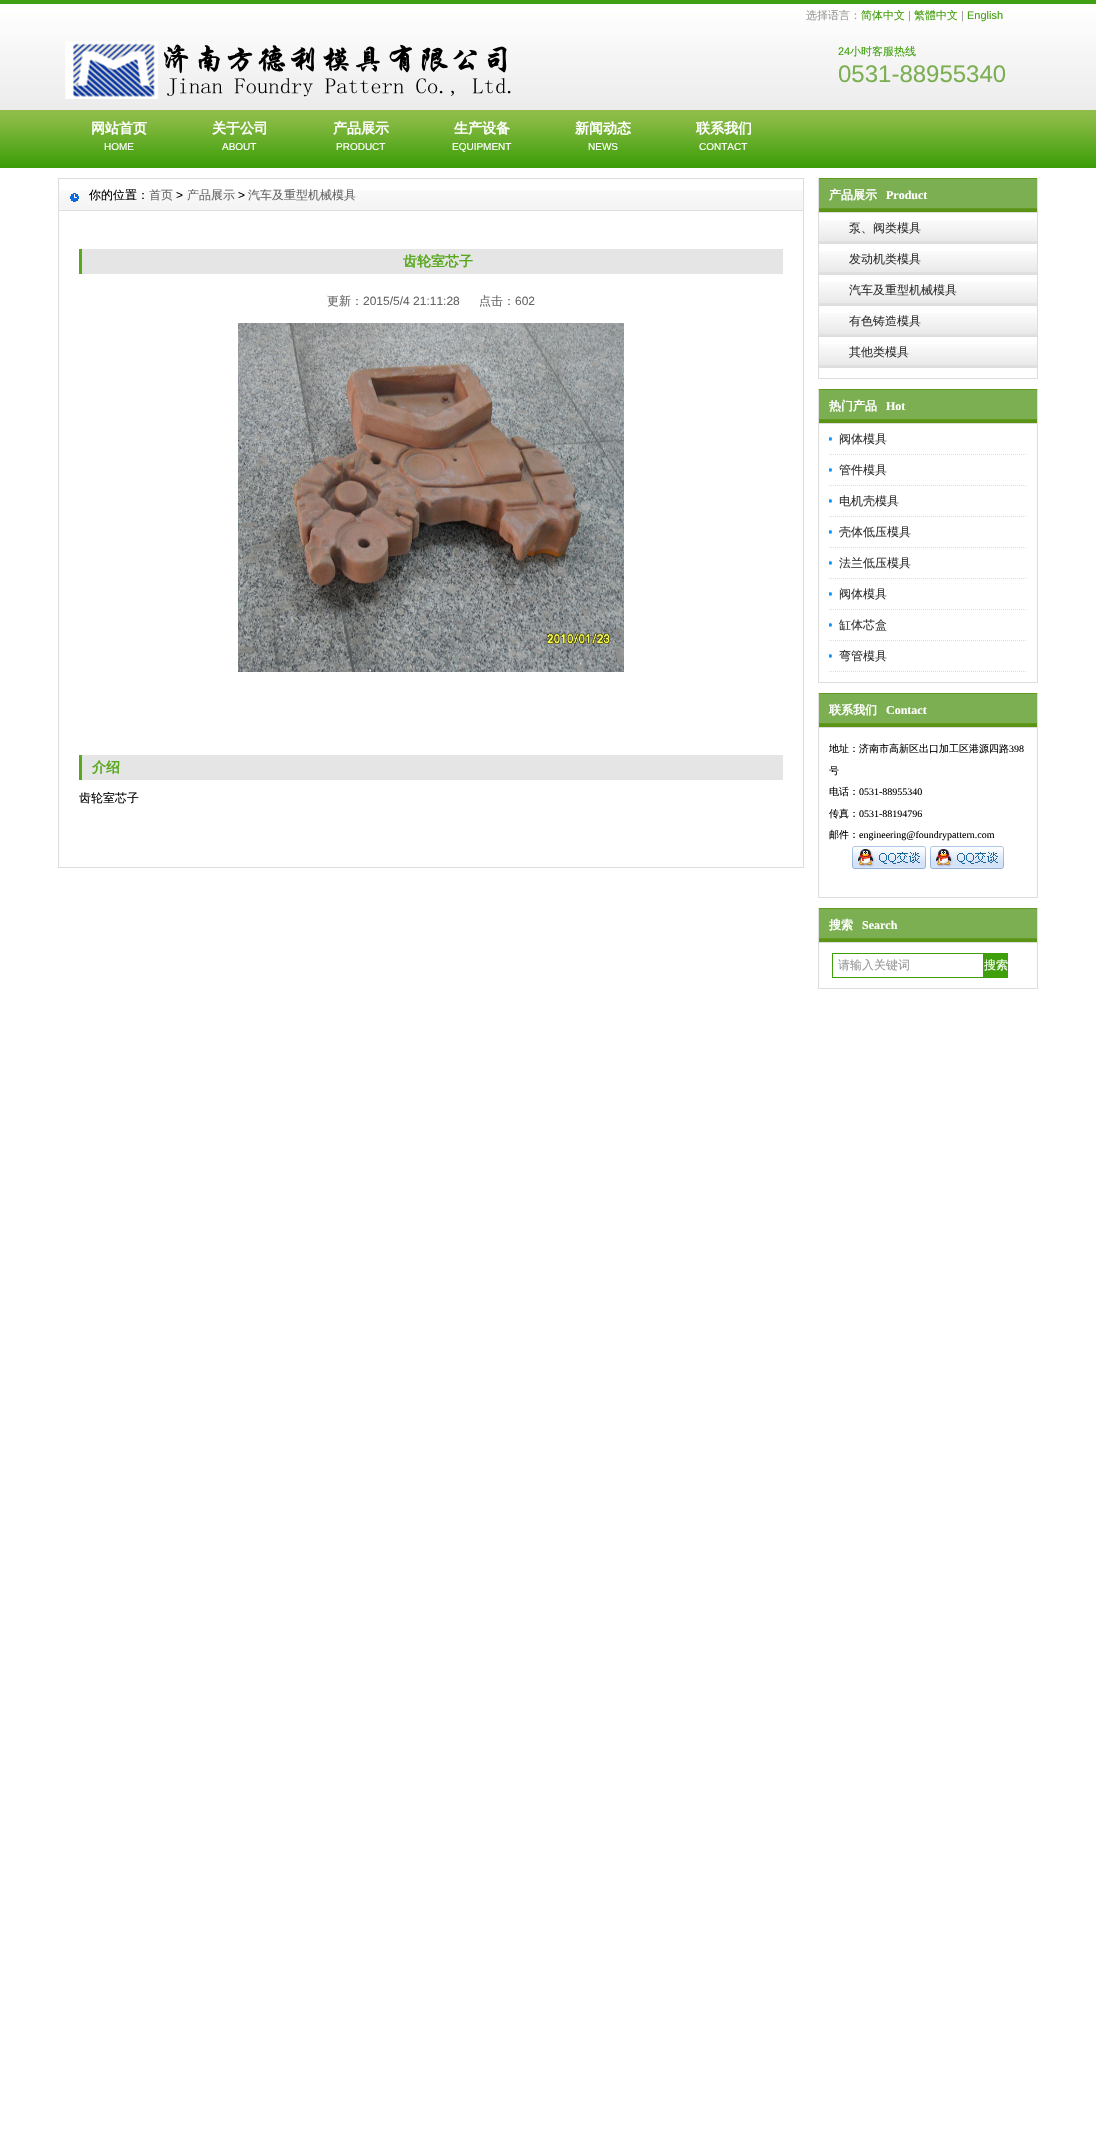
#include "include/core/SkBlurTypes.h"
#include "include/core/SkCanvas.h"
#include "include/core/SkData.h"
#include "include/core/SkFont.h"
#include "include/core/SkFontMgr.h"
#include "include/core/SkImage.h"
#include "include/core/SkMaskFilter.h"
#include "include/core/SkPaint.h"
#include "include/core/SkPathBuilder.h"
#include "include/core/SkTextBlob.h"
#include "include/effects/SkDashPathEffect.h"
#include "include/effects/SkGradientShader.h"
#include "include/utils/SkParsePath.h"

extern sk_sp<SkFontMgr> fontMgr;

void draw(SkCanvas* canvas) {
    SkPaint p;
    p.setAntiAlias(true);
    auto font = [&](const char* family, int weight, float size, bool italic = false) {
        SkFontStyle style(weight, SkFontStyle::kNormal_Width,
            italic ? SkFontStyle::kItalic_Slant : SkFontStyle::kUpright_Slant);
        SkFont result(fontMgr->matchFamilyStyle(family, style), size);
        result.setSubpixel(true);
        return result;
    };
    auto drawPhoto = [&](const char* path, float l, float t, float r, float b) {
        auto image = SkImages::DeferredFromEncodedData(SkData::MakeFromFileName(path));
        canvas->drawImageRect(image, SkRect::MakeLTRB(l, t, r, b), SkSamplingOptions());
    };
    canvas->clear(0xFFFFFFFF);
    drawPhoto("media/1.png", 0, 0, 1096, 110);
    auto font1 = font("WenQuanYi Zen Hei", 500, 11);
    p.setColor(0xFF999999);
    canvas->drawString("选择语言：", 806, 19, font1, p);
    p.setColor(0xFF3F9F0A);
    canvas->drawString("简体中文", 861, 19, font1, p);
    auto font2 = font("Liberation Sans", 400, 11);
    p.setColor(0xFF999999);
    canvas->drawString("|", 908, 19, font2, p);
    p.setColor(0xFF3F9F0A);
    canvas->drawString("繁體中文", 914, 19, font1, p);
    p.setColor(0xFF999999);
    canvas->drawString("|", 961, 19, font2, p);
    p.setColor(0xFF3F9F0A);
    canvas->drawString("English", 967, 19, font2, p);
    drawPhoto("media/2.png", 65, 41, 511, 99);
    canvas->drawString("24", 838, 55, font2, p);
    canvas->drawString("小时客服热线", 850, 55, font1, p);
    auto font3 = font("Liberation Sans", 400, 24);
    p.setColor(0xFF7CAF52);
    canvas->drawString("0531-88955340", 838, 82, font3, p);
    drawPhoto("media/3.png", 0, 110, 1096, 168);
    auto font4 = font("WenQuanYi Zen Hei", 700, 14);
    p.setColor(0xFFFFFFFF);
    canvas->drawString("网站首页", 91, 133, font4, p);
    auto font5 = font("Liberation Sans", 400, 10);
    canvas->drawString("HOME", 104, 150, font5, p);
    canvas->drawString("关于公司", 212, 133, font4, p);
    canvas->drawString("ABOUT", 222, 150, font5, p);
    canvas->drawString("产品展示", 333, 133, font4, p);
    canvas->drawString("PRODUCT", 336, 150, font5, p);
    canvas->drawString("生产设备", 454, 133, font4, p);
    canvas->drawString("EQUIPMENT", 452, 150, font5, p);
    canvas->drawString("新闻动态", 575, 133, font4, p);
    canvas->drawString("NEWS", 588, 150, font5, p);
    canvas->drawString("联系我们", 696, 133, font4, p);
    canvas->drawString("CONTACT", 699, 150, font5, p);
    p.setStyle(SkPaint::kStroke_Style);
    p.setStrokeWidth(1);
    p.setColor(0xFFDDDDDD);
    canvas->drawRect(SkRect::MakeLTRB(58.5f, 178.5f, 803.5f, 867.5f), p);
    drawPhoto("media/4.png", 59, 190, 803, 211);
    drawPhoto("media/5.png", 70, 193, 79, 202);
    auto font6 = font("WenQuanYi Zen Hei", 500, 12);
    p.setStyle(SkPaint::kFill_Style);
    p.setColor(0xFF000000);
    canvas->drawString("你的位置：", 89, 199, font6, p);
    p.setColor(0xFF666666);
    canvas->drawString("首页", 149, 199, font6, p);
    auto font7 = font("Liberation Sans", 400, 12);
    p.setColor(0xFF000000);
    canvas->drawString(">", 176, 199, font7, p);
    p.setColor(0xFF666666);
    canvas->drawString("产品展示", 187, 199, font6, p);
    p.setColor(0xFF000000);
    canvas->drawString(">", 238, 199, font7, p);
    p.setColor(0xFF666666);
    canvas->drawString("汽车及重型机械模具", 248, 199, font6, p);
    p.setColor(0xFFE5E5E5);
    canvas->drawRect(SkRect::MakeLTRB(82, 249, 783, 274), p);
    p.setColor(0xFF57A81C);
    canvas->drawRect(SkRect::MakeLTRB(79, 249, 82, 274), p);
    canvas->drawString("齿轮室芯子", 403, 266, font4, p);
    p.setColor(0xFF666666);
    canvas->drawString("更新：", 327, 305, font6, p);
    canvas->drawString("2015/5/4 21:11:28", 363, 305, font7, p);
    canvas->drawString("点击：", 479, 305, font6, p);
    canvas->drawString("602", 515, 305, font7, p);
    drawPhoto("media/6.png", 238, 323, 624, 672);
    p.setColor(0xFFE5E5E5);
    canvas->drawRect(SkRect::MakeLTRB(82, 755, 783, 780), p);
    p.setColor(0xFF57A81C);
    canvas->drawRect(SkRect::MakeLTRB(79, 755, 82, 780), p);
    canvas->drawString("介绍", 92, 772, font4, p);
    p.setColor(0xFF000000);
    canvas->drawString("齿轮室芯子", 79, 802, font6, p);
    {
        const struct { float l, t, r, b; SkColor color; } items[] = {
            {1037, 178, 1038, 379, 0xFFDDDDDD},
            {818, 378, 1038, 379, 0xFFDDDDDD},
            {818, 178, 819, 379, 0xFFDDDDDD},
        };
        for (auto [l, t, r, b, color] : items) {
            p.setColor(color);
            canvas->drawRect(SkRect::MakeLTRB(l, t, r, b), p);
        }
    }
    drawPhoto("media/7.png", 819, 178, 1037, 212);
    canvas->drawRect(SkRect::MakeLTRB(819, 212, 1037, 213), p);
    auto font8 = font("WenQuanYi Zen Hei", 700, 12);
    p.setColor(0xFFFFFFFF);
    canvas->drawString("产品展示", 829, 199, font8, p);
    auto font9 = font("Liberation Serif", 700, 12);
    canvas->drawString("Product", 886, 199, font9, p);
    drawPhoto("media/8.png", 819, 220, 1037, 243);
    p.setColor(0xFFDDDDDD);
    canvas->drawRect(SkRect::MakeLTRB(819, 243, 1037, 244), p);
    p.setColor(0xFF333333);
    canvas->drawString("泵、阀类模具", 849, 232, font6, p);
    drawPhoto("media/8.png", 819, 251, 1037, 274);
    p.setColor(0xFFDDDDDD);
    canvas->drawRect(SkRect::MakeLTRB(819, 274, 1037, 275), p);
    p.setColor(0xFF333333);
    canvas->drawString("发动机类模具", 849, 263, font6, p);
    drawPhoto("media/8.png", 819, 282, 1037, 305);
    p.setColor(0xFFDDDDDD);
    canvas->drawRect(SkRect::MakeLTRB(819, 305, 1037, 306), p);
    p.setColor(0xFF333333);
    canvas->drawString("汽车及重型机械模具", 849, 294, font6, p);
    drawPhoto("media/8.png", 819, 313, 1037, 336);
    p.setColor(0xFFDDDDDD);
    canvas->drawRect(SkRect::MakeLTRB(819, 336, 1037, 337), p);
    p.setColor(0xFF333333);
    canvas->drawString("有色铸造模具", 849, 325, font6, p);
    drawPhoto("media/8.png", 819, 344, 1037, 367);
    p.setColor(0xFFDDDDDD);
    canvas->drawRect(SkRect::MakeLTRB(819, 367, 1037, 368), p);
    p.setColor(0xFF333333);
    canvas->drawString("其他类模具", 849, 356, font6, p);
    {
        const struct { float l, t, r, b; SkColor color; } items[] = {
            {1037, 389, 1038, 683, 0xFFDDDDDD},
            {818, 682, 1038, 683, 0xFFDDDDDD},
            {818, 389, 819, 683, 0xFFDDDDDD},
        };
        for (auto [l, t, r, b, color] : items) {
            p.setColor(color);
            canvas->drawRect(SkRect::MakeLTRB(l, t, r, b), p);
        }
    }
    drawPhoto("media/7.png", 819, 389, 1037, 423);
    canvas->drawRect(SkRect::MakeLTRB(819, 423, 1037, 424), p);
    p.setColor(0xFFFFFFFF);
    canvas->drawString("热门产品", 829, 410, font8, p);
    canvas->drawString("Hot", 886, 410, font9, p);
    drawPhoto("media/9.png", 829, 436, 832, 441);
    p.setStyle(SkPaint::kStroke_Style);
    p.setColor(0xFFDDDDDD);
    p.setPathEffect(SkDashPathEffect::Make({{1, 1}}, 0));
    canvas->drawPath(SkPathBuilder().moveTo(829, 454.5f).lineTo(1027, 454.5f).detach(), p);
    p.setPathEffect(nullptr);
    p.setStyle(SkPaint::kFill_Style);
    p.setColor(0xFF333333);
    canvas->drawString("阀体模具", 839, 443, font6, p);
    drawPhoto("media/9.png", 829, 467, 832, 472);
    p.setStyle(SkPaint::kStroke_Style);
    p.setColor(0xFFDDDDDD);
    p.setPathEffect(SkDashPathEffect::Make({{1, 1}}, 0));
    canvas->drawPath(SkPathBuilder().moveTo(829, 485.5f).lineTo(1027, 485.5f).detach(), p);
    p.setPathEffect(nullptr);
    p.setStyle(SkPaint::kFill_Style);
    p.setColor(0xFF333333);
    canvas->drawString("管件模具", 839, 474, font6, p);
    drawPhoto("media/9.png", 829, 498, 832, 503);
    p.setStyle(SkPaint::kStroke_Style);
    p.setColor(0xFFDDDDDD);
    p.setPathEffect(SkDashPathEffect::Make({{1, 1}}, 0));
    canvas->drawPath(SkPathBuilder().moveTo(829, 516.5f).lineTo(1027, 516.5f).detach(), p);
    p.setPathEffect(nullptr);
    p.setStyle(SkPaint::kFill_Style);
    p.setColor(0xFF333333);
    canvas->drawString("电机壳模具", 839, 505, font6, p);
    drawPhoto("media/9.png", 829, 529, 832, 534);
    p.setStyle(SkPaint::kStroke_Style);
    p.setColor(0xFFDDDDDD);
    p.setPathEffect(SkDashPathEffect::Make({{1, 1}}, 0));
    canvas->drawPath(SkPathBuilder().moveTo(829, 547.5f).lineTo(1027, 547.5f).detach(), p);
    p.setPathEffect(nullptr);
    p.setStyle(SkPaint::kFill_Style);
    p.setColor(0xFF333333);
    canvas->drawString("壳体低压模具", 839, 536, font6, p);
    drawPhoto("media/9.png", 829, 560, 832, 565);
    p.setStyle(SkPaint::kStroke_Style);
    p.setColor(0xFFDDDDDD);
    p.setPathEffect(SkDashPathEffect::Make({{1, 1}}, 0));
    canvas->drawPath(SkPathBuilder().moveTo(829, 578.5f).lineTo(1027, 578.5f).detach(), p);
    p.setPathEffect(nullptr);
    p.setStyle(SkPaint::kFill_Style);
    p.setColor(0xFF333333);
    canvas->drawString("法兰低压模具", 839, 567, font6, p);
    drawPhoto("media/9.png", 829, 591, 832, 596);
    p.setStyle(SkPaint::kStroke_Style);
    p.setColor(0xFFDDDDDD);
    p.setPathEffect(SkDashPathEffect::Make({{1, 1}}, 0));
    canvas->drawPath(SkPathBuilder().moveTo(829, 609.5f).lineTo(1027, 609.5f).detach(), p);
    p.setPathEffect(nullptr);
    p.setStyle(SkPaint::kFill_Style);
    p.setColor(0xFF333333);
    canvas->drawString("阀体模具", 839, 598, font6, p);
    drawPhoto("media/9.png", 829, 622, 832, 627);
    p.setStyle(SkPaint::kStroke_Style);
    p.setColor(0xFFDDDDDD);
    p.setPathEffect(SkDashPathEffect::Make({{1, 1}}, 0));
    canvas->drawPath(SkPathBuilder().moveTo(829, 640.5f).lineTo(1027, 640.5f).detach(), p);
    p.setPathEffect(nullptr);
    p.setStyle(SkPaint::kFill_Style);
    p.setColor(0xFF333333);
    canvas->drawString("缸体芯盒", 839, 629, font6, p);
    drawPhoto("media/9.png", 829, 653, 832, 658);
    p.setStyle(SkPaint::kStroke_Style);
    p.setColor(0xFFDDDDDD);
    p.setPathEffect(SkDashPathEffect::Make({{1, 1}}, 0));
    canvas->drawPath(SkPathBuilder().moveTo(829, 671.5f).lineTo(1027, 671.5f).detach(), p);
    p.setPathEffect(nullptr);
    p.setStyle(SkPaint::kFill_Style);
    p.setColor(0xFF333333);
    canvas->drawString("弯管模具", 839, 660, font6, p);
    {
        const struct { float l, t, r, b; SkColor color; } items[] = {
            {1037, 693, 1038, 898, 0xFFDDDDDD},
            {818, 897, 1038, 898, 0xFFDDDDDD},
            {818, 693, 819, 898, 0xFFDDDDDD},
        };
        for (auto [l, t, r, b, color] : items) {
            p.setColor(color);
            canvas->drawRect(SkRect::MakeLTRB(l, t, r, b), p);
        }
    }
    drawPhoto("media/7.png", 819, 693, 1037, 727);
    canvas->drawRect(SkRect::MakeLTRB(819, 727, 1037, 728), p);
    p.setColor(0xFFFFFFFF);
    canvas->drawString("联系我们", 829, 714, font8, p);
    canvas->drawString("Contact", 886, 714, font9, p);
    auto font10 = font("WenQuanYi Zen Hei", 500, 10);
    p.setColor(0xFF000000);
    canvas->drawString("地址：济南市高新区出口加工区港源四路", 829, 752, font10, p);
    auto font11 = font("Liberation Serif", 400, 10);
    canvas->drawString("398", 1009, 752, font11, p);
    canvas->drawString("号", 829, 774, font10, p);
    canvas->drawString("电话：", 829, 795, font10, p);
    canvas->drawString("0531-88955340", 859, 795, font11, p);
    canvas->drawString("传真：", 829, 817, font10, p);
    canvas->drawString("0531-88194796", 859, 817, font11, p);
    canvas->drawString("邮件：", 829, 838, font10, p);
    canvas->drawString("engineering@foundrypattern.com", 859, 838, font11, p);
    drawPhoto("media/10.png", 852, 846, 926, 869);
    drawPhoto("media/10.png", 930, 846, 1004, 869);
    {
        const struct { float l, t, r, b; SkColor color; } items[] = {
            {1037, 908, 1038, 989, 0xFFDDDDDD},
            {818, 988, 1038, 989, 0xFFDDDDDD},
            {818, 908, 819, 989, 0xFFDDDDDD},
        };
        for (auto [l, t, r, b, color] : items) {
            p.setColor(color);
            canvas->drawRect(SkRect::MakeLTRB(l, t, r, b), p);
        }
    }
    drawPhoto("media/7.png", 819, 908, 1037, 942);
    canvas->drawRect(SkRect::MakeLTRB(819, 942, 1037, 943), p);
    p.setColor(0xFFFFFFFF);
    canvas->drawString("搜索", 829, 929, font8, p);
    canvas->drawString("Search", 862, 929, font9, p);
    p.setStyle(SkPaint::kStroke_Style);
    p.setColor(0xFF3F9F0A);
    canvas->drawRect(SkRect::MakeLTRB(832.5f, 953.5f, 983.5f, 977.5f), p);
    p.setStyle(SkPaint::kFill_Style);
    p.setColor(0xFF999999);
    canvas->drawString("请输入关键词", 838, 969, font6, p);
    p.setColor(0xFF3F9F0A);
    canvas->drawRect(SkRect::MakeLTRB(984, 953, 1008, 978), p);
    p.setColor(0xFFFFFFFF);
    canvas->drawString("搜索", 984, 969, font6, p);
}
